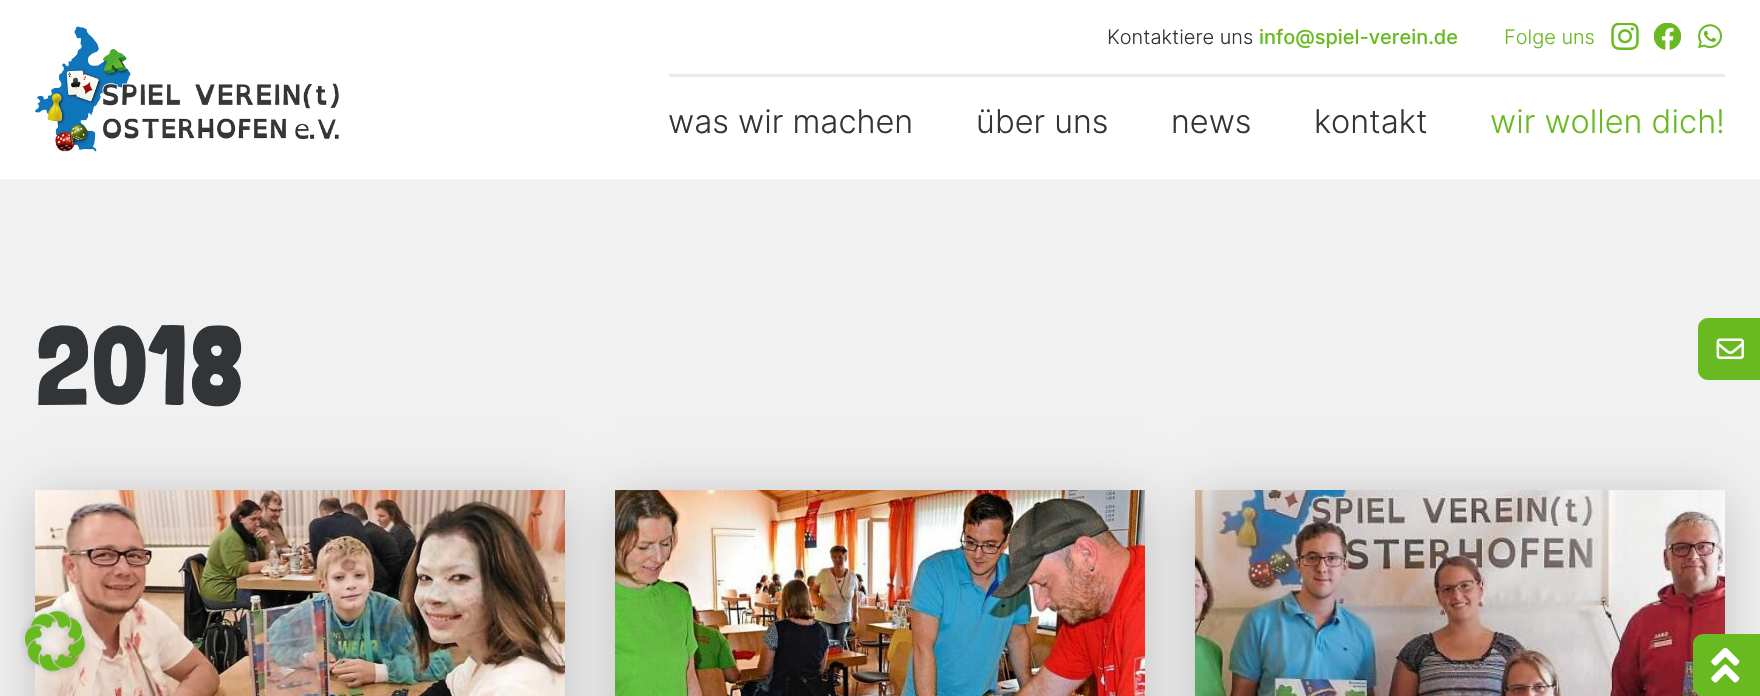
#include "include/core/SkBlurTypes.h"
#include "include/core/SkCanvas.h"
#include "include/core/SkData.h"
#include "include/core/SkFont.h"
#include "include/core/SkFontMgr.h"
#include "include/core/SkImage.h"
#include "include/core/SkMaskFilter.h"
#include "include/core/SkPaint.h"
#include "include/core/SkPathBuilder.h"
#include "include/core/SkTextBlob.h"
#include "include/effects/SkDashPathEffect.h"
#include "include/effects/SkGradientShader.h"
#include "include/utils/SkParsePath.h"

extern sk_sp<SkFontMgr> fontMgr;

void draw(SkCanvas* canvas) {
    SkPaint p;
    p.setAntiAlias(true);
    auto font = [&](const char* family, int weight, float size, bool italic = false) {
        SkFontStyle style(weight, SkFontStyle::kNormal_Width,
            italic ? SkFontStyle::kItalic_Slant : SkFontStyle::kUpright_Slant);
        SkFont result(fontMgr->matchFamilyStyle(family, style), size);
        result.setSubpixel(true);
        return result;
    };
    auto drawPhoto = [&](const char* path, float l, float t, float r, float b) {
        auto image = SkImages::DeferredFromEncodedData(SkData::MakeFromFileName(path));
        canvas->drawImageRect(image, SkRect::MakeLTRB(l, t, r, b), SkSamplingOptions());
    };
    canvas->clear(0xFFFFFFFF);
    drawPhoto("media/1.png", 35, 26, 339, 152);
    p.setColor(0xFFEAEAEA);
    canvas->drawRect(SkRect::MakeLTRB(669, 74, 1725, 77), p);
    auto font1 = font("Inter", 300, 20);
    p.setColor(0xFF323537);
    canvas->drawString("Kontaktiere uns", 1107, 44, font1, p);
    auto font2 = font("Inter", 500, 20);
    p.setColor(0xFF68BA20);
    canvas->drawString("info@spiel-verein.de", 1259, 44, font2, p);
    canvas->drawString("Folge uns", 1504, 44, font1, p);
    drawPhoto("media/2.png", 1611, 23, 1639, 50);
    drawPhoto("media/3.png", 1654, 23, 1681, 50);
    drawPhoto("media/4.png", 1698, 24, 1722, 49);
    auto font3 = font("Inter", 300, 32.5f);
    p.setColor(0xFF323537);
    {
        const struct { const char* s; float x, y; } items[] = {
            {"was wir machen", 668, 133},
            {"über uns", 976, 133},
            {"news", 1171, 133},
            {"kontakt", 1314, 133},
        };
        for (auto [s, x, y] : items) {
            canvas->drawString(s, x, y, font3, p);
        }
    }
    p.setColor(0xFF68BA20);
    canvas->drawString("wir wollen dich!", 1490, 133, font3, p);
    p.setColor(0xFFF1F1F1);
    canvas->drawRect(SkRect::MakeLTRB(0, 179, 1760, 696), p);
    auto font4 = font("Londrina Solid", 400, 112);
    p.setColor(0xFF323537);
    canvas->drawString("2018", 35, 405, font4, p);
    p.setColor(0x33000000);
    p.setMaskFilter(SkMaskFilter::MakeBlur(kNormal_SkBlurStyle, 25));
    canvas->drawRect(SkRect::MakeLTRB(35, 496, 565, 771), p);
    p.setMaskFilter(nullptr);
    drawPhoto("media/5.png", 35, 490, 565, 696);
    p.setMaskFilter(SkMaskFilter::MakeBlur(kNormal_SkBlurStyle, 25));
    canvas->drawRect(SkRect::MakeLTRB(615, 496, 1145, 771), p);
    p.setMaskFilter(nullptr);
    drawPhoto("media/6.png", 615, 490, 1145, 696);
    p.setMaskFilter(SkMaskFilter::MakeBlur(kNormal_SkBlurStyle, 25));
    canvas->drawRect(SkRect::MakeLTRB(1195, 496, 1725, 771), p);
    p.setMaskFilter(nullptr);
    drawPhoto("media/7.png", 1195, 490, 1725, 696);
    p.setColor(0xFF68BA20);
    canvas->drawPath(SkPathBuilder().moveTo(1708, 318).lineTo(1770, 318).lineTo(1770, 380).lineTo(1708, 380).cubicTo(1702.5f, 380, 1698, 375.5f, 1698, 370).lineTo(1698, 328).cubicTo(1698, 322.5f, 1702.5f, 318, 1708, 318).close().detach(), p);
    drawPhoto("media/8.png", 1716, 338, 1744, 360);
    canvas->drawPath(SkPathBuilder().moveTo(1703, 634).lineTo(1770, 634).lineTo(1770, 696).lineTo(1703, 696).cubicTo(1697.5f, 696, 1693, 691.5f, 1693, 686).lineTo(1693, 644).cubicTo(1693, 638.5f, 1697.5f, 634, 1703, 634).close().detach(), p);
    drawPhoto("media/9.png", 1711, 648, 1740, 683);
    drawPhoto("media/10.png", 20, 606, 90, 676);
}
